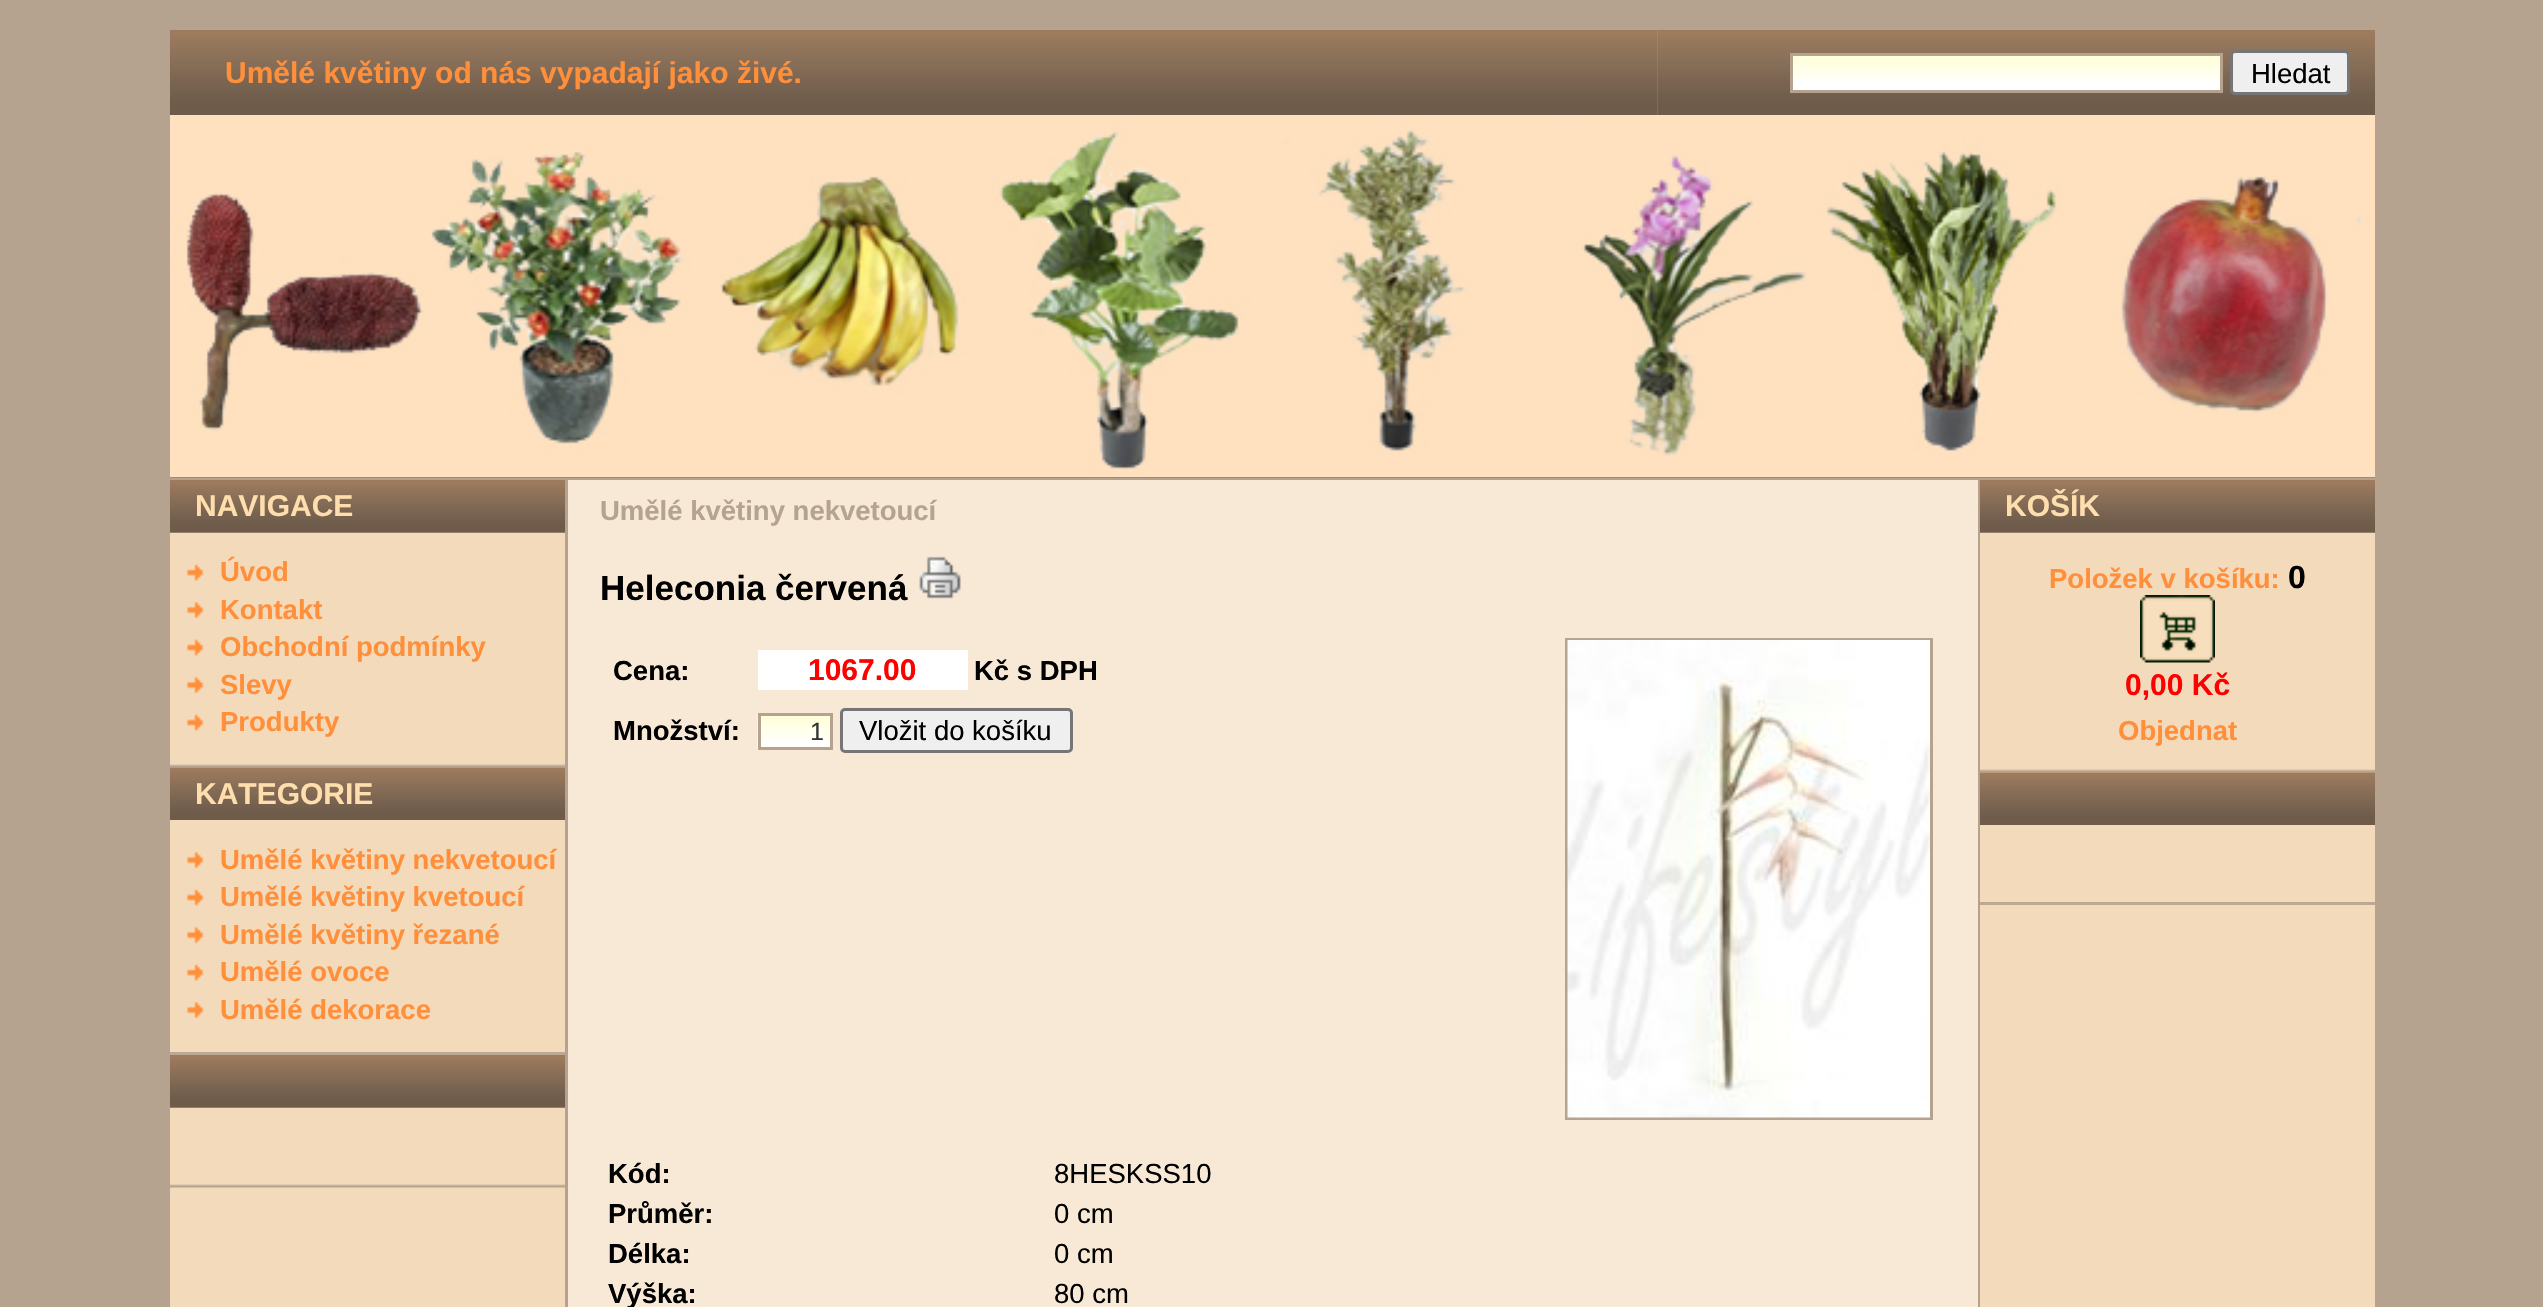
#include "include/core/SkBlurTypes.h"
#include "include/core/SkCanvas.h"
#include "include/core/SkData.h"
#include "include/core/SkFont.h"
#include "include/core/SkFontMgr.h"
#include "include/core/SkImage.h"
#include "include/core/SkMaskFilter.h"
#include "include/core/SkPaint.h"
#include "include/core/SkPathBuilder.h"
#include "include/core/SkTextBlob.h"
#include "include/effects/SkDashPathEffect.h"
#include "include/effects/SkGradientShader.h"
#include "include/utils/SkParsePath.h"

extern sk_sp<SkFontMgr> fontMgr;

void draw(SkCanvas* canvas) {
    SkPaint p;
    p.setAntiAlias(true);
    auto font = [&](const char* family, int weight, float size, bool italic = false) {
        SkFontStyle style(weight, SkFontStyle::kNormal_Width,
            italic ? SkFontStyle::kItalic_Slant : SkFontStyle::kUpright_Slant);
        SkFont result(fontMgr->matchFamilyStyle(family, style), size);
        result.setSubpixel(true);
        return result;
    };
    auto drawPhoto = [&](const char* path, float l, float t, float r, float b) {
        auto image = SkImages::DeferredFromEncodedData(SkData::MakeFromFileName(path));
        canvas->drawImageRect(image, SkRect::MakeLTRB(l, t, r, b), SkSamplingOptions());
    };
    canvas->clear(0xFFB5A38F);
    drawPhoto("media/1.png", 170, 30, 1658, 115);
    auto font1 = font("Liberation Sans", 700, 30);
    p.setColor(0xFFFF8F3A);
    canvas->drawString("Umělé květiny od nás vypadají jako živé.", 225, 83, font1, p);
    drawPhoto("media/2.png", 1657, 30, 2375, 115);
    p.setColor(0xFFFFFFFF);
    canvas->drawRect(SkRect::MakeLTRB(1793, 81, 2220, 90), p);
    drawPhoto("media/3.png", 1793, 56, 2220, 81);
    p.setStyle(SkPaint::kStroke_Style);
    p.setStrokeWidth(3);
    p.setColor(0xFFB5A38F);
    canvas->drawRect(SkRect::MakeLTRB(1791.5f, 54.5f, 2221.5f, 91.5f), p);
    p.setStyle(SkPaint::kFill_Style);
    p.setColor(0xFFEFEFEF);
    canvas->drawRoundRect(SkRect::MakeLTRB(2231.5f, 51.5f, 2348.5f, 93.5f), 3.5f, 3.5f, p);
    p.setStyle(SkPaint::kStroke_Style);
    p.setColor(0xFF767676);
    canvas->drawRoundRect(SkRect::MakeLTRB(2231.5f, 51.5f, 2348.5f, 93.5f), 3.5f, 3.5f, p);
    auto font2 = font("Liberation Sans", 400, 27.5f);
    p.setStyle(SkPaint::kFill_Style);
    p.setColor(0xFF000000);
    canvas->drawString("Hledat", 2251, 83, font2, p);
    p.setColor(0xFF8B1610);
    canvas->drawRect(SkRect::MakeLTRB(170, 477, 2375, 478), p);
    drawPhoto("media/4.png", 170, 115, 2375, 478);
    p.setColor(0xFFF3DABA);
    canvas->drawRect(SkRect::MakeLTRB(170, 533, 565, 1307), p);
    drawPhoto("media/5.png", 170, 480, 565, 533);
    p.setColor(0xFFFFDEAD);
    canvas->drawString("NAVIGACE", 195, 516, font1, p);
    drawPhoto("media/6.png", 186, 564, 204, 581);
    auto font3 = font("Liberation Sans", 700, 27.5f);
    p.setColor(0xFFFF8F3A);
    canvas->drawString("Úvod", 220, 581, font3, p);
    drawPhoto("media/7.png", 186, 601, 204, 619);
    canvas->drawString("Kontakt", 220, 619, font3, p);
    drawPhoto("media/6.png", 186, 639, 204, 656);
    canvas->drawString("Obchodní podmínky", 220, 656, font3, p);
    drawPhoto("media/7.png", 186, 676, 204, 694);
    canvas->drawString("Slevy", 220, 694, font3, p);
    drawPhoto("media/6.png", 186, 714, 204, 731);
    canvas->drawString("Produkty", 220, 731, font3, p);
    drawPhoto("media/8.png", 170, 764, 565, 768);
    drawPhoto("media/9.png", 170, 767, 565, 820);
    p.setColor(0xFFFFDEAD);
    canvas->drawString("KATEGORIE", 195, 804, font1, p);
    drawPhoto("media/7.png", 186, 851, 204, 869);
    p.setColor(0xFFFF8F3A);
    canvas->drawString("Umělé květiny nekvetoucí", 220, 869, font3, p);
    drawPhoto("media/6.png", 186, 889, 204, 906);
    canvas->drawString("Umělé květiny kvetoucí", 220, 906, font3, p);
    drawPhoto("media/7.png", 186, 926, 204, 944);
    canvas->drawString("Umělé květiny řezané", 220, 944, font3, p);
    drawPhoto("media/6.png", 186, 964, 204, 981);
    canvas->drawString("Umělé ovoce", 220, 981, font3, p);
    drawPhoto("media/7.png", 186, 1001, 204, 1019);
    canvas->drawString("Umělé dekorace", 220, 1019, font3, p);
    p.setColor(0xFFBCA994);
    canvas->drawRect(SkRect::MakeLTRB(170, 1052, 565, 1055), p);
    p.setColor(0xFFB5A38F);
    canvas->drawRect(SkRect::MakeLTRB(170, 1107, 565, 1108), p);
    drawPhoto("media/5.png", 170, 1055, 565, 1108);
    drawPhoto("media/8.png", 170, 1184, 565, 1188);
    p.setColor(0xFFF8E9D6);
    canvas->drawRect(SkRect::MakeLTRB(568, 480, 1978, 1307), p);
    p.setColor(0xFFB5A38F);
    canvas->drawString("Umělé květiny nekvetoucí", 600, 520, font3, p);
    auto font4 = font("Liberation Sans", 700, 35);
    p.setColor(0xFF000000);
    canvas->drawString("Heleconia červená", 600, 600, font4, p);
    drawPhoto("media/10.png", 919, 556, 961, 599);
    canvas->drawString("Cena:", 613, 680, font3, p);
    p.setColor(0xFFFFFFFF);
    canvas->drawRect(SkRect::MakeLTRB(758, 650, 968, 690), p);
    p.setColor(0xFFFF0000);
    canvas->drawString("1067.00", 808, 680, font1, p);
    p.setColor(0xFF000000);
    canvas->drawString("Kč s DPH", 974, 680, font3, p);
    canvas->drawString("Množství:", 613, 740, font3, p);
    drawPhoto("media/11.png", 757, 715, 830, 750);
    p.setStyle(SkPaint::kStroke_Style);
    p.setColor(0xFFB5A38F);
    canvas->drawRect(SkRect::MakeLTRB(759.5f, 714.5f, 831.5f, 748.5f), p);
    auto font5 = font("Liberation Sans", 400, 25);
    p.setStyle(SkPaint::kFill_Style);
    p.setColor(0xFF333333);
    canvas->drawString("1", 810, 740, font5, p);
    p.setColor(0xFFEFEFEF);
    canvas->drawRoundRect(SkRect::MakeLTRB(841.5f, 709.5f, 1071.5f, 751.5f), 3.5f, 3.5f, p);
    p.setStyle(SkPaint::kStroke_Style);
    p.setColor(0xFF767676);
    canvas->drawRoundRect(SkRect::MakeLTRB(841.5f, 709.5f, 1071.5f, 751.5f), 3.5f, 3.5f, p);
    p.setStyle(SkPaint::kFill_Style);
    p.setColor(0xFF000000);
    canvas->drawString("Vložit do košíku", 859, 740, font2, p);
    p.setStyle(SkPaint::kStroke_Style);
    p.setColor(0xFFB5A38F);
    canvas->drawRect(SkRect::MakeLTRB(1566.5f, 639.5f, 1931.5f, 1118.5f), p);
    drawPhoto("media/12.png", 1567, 640, 1930, 1118);
    p.setStyle(SkPaint::kFill_Style);
    p.setColor(0xFF000000);
    canvas->drawString("Kód:", 608, 1183, font3, p);
    canvas->drawString("8HESKSS10", 1054, 1183, font2, p);
    canvas->drawString("Průměr:", 608, 1223, font3, p);
    canvas->drawString("0 cm", 1054, 1223, font2, p);
    canvas->drawString("Délka:", 608, 1263, font3, p);
    canvas->drawString("0 cm", 1054, 1263, font2, p);
    canvas->drawString("Výška:", 608, 1303, font3, p);
    canvas->drawString("80 cm", 1054, 1303, font2, p);
    p.setColor(0xFFF3DABA);
    canvas->drawRect(SkRect::MakeLTRB(1980, 533, 2375, 1307), p);
    drawPhoto("media/5.png", 1980, 480, 2375, 533);
    p.setColor(0xFFFFDEAD);
    canvas->drawString("KOŠÍK", 2005, 516, font1, p);
    p.setColor(0xFFFF8F3A);
    canvas->drawString("Položek v košíku:", 2049, 588, font3, p);
    auto font6 = font("Liberation Sans", 700, 32);
    p.setColor(0xFF000000);
    canvas->drawString("0", 2288, 588, font6, p);
    drawPhoto("media/13.png", 2140, 595, 2215, 663);
    p.setColor(0xFFFF0000);
    canvas->drawString("0,00 Kč", 2125, 695, font1, p);
    p.setColor(0xFFFF8F3A);
    canvas->drawString("Objednat", 2118, 740, font3, p);
    drawPhoto("media/8.png", 1980, 769, 2375, 773);
    drawPhoto("media/9.png", 1980, 772, 2375, 825);
    p.setColor(0xFFBCA994);
    canvas->drawRect(SkRect::MakeLTRB(1980, 902, 2375, 905), p);
}
